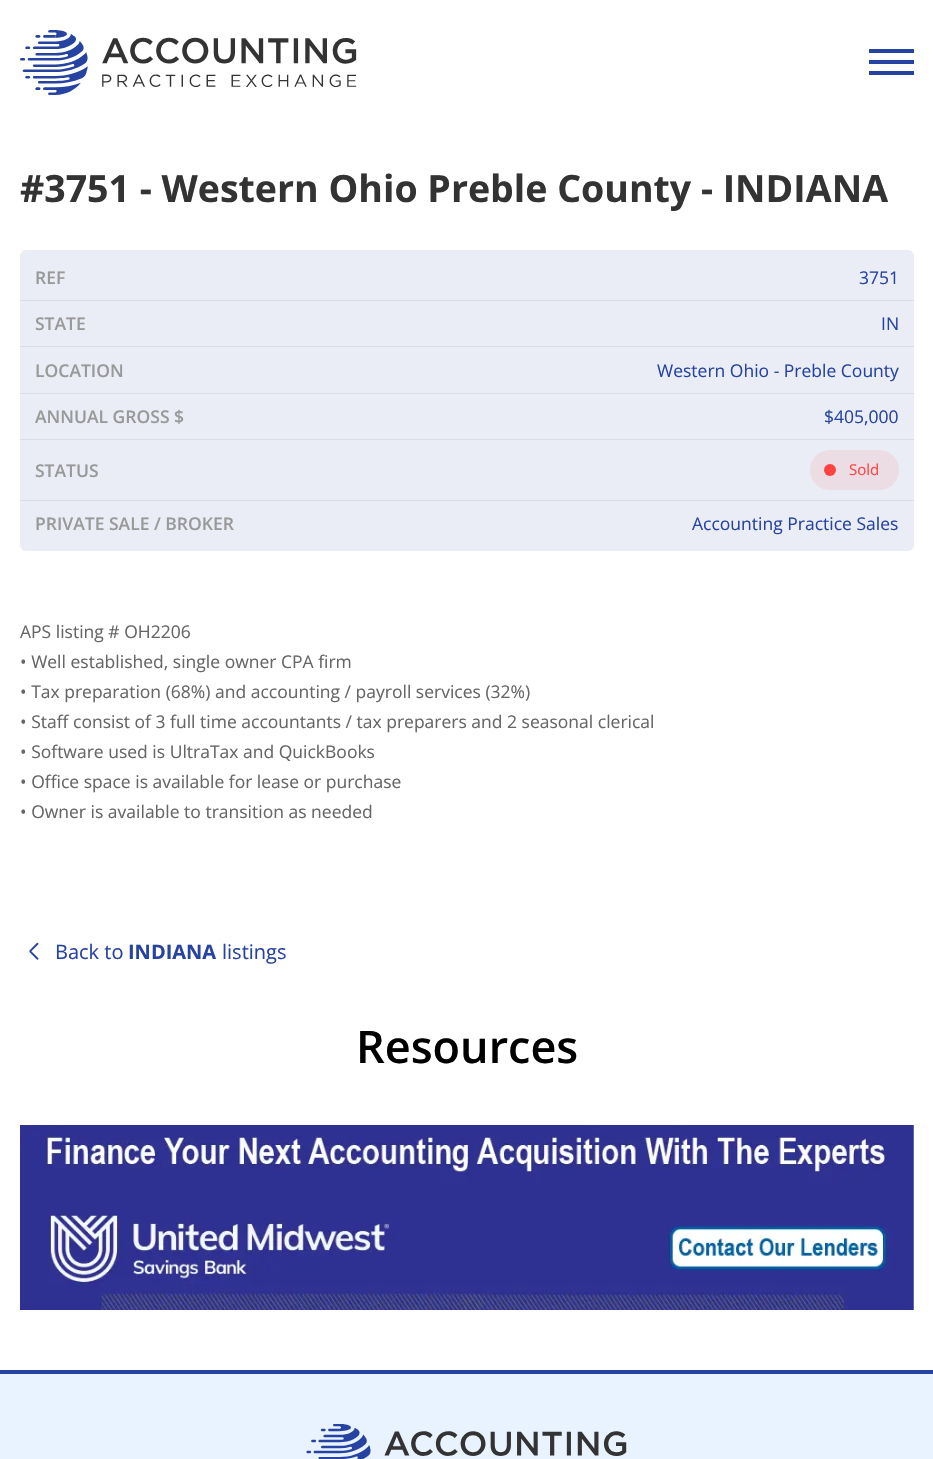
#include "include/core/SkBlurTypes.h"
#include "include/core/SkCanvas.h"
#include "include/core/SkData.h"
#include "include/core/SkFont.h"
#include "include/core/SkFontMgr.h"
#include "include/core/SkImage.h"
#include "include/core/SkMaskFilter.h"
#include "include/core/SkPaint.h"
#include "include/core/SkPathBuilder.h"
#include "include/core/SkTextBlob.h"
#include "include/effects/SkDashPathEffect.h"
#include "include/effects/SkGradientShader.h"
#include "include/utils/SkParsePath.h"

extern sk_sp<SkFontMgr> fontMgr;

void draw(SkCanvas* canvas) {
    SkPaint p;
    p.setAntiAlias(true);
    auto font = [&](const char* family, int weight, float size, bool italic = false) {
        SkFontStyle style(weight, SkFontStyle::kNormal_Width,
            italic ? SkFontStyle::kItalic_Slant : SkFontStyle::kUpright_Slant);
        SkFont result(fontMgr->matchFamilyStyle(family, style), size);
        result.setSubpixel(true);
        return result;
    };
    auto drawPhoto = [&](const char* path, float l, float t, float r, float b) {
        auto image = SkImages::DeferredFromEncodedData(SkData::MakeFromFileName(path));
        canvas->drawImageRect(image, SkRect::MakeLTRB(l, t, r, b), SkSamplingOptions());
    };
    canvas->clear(0xFFFFFFFF);
    drawPhoto("media/1.png", 20, 30, 357, 95);
    {
        const struct { float l, t, r, b; SkColor color; } items[] = {
            {869, 49, 914, 53, 0xFF2643A1},
            {869, 60, 914, 64, 0xFF2643A1},
            {869, 71, 914, 75, 0xFF2643A1},
        };
        for (auto [l, t, r, b, color] : items) {
            p.setColor(color);
            canvas->drawRect(SkRect::MakeLTRB(l, t, r, b), p);
        }
    }
    auto font1 = font("Open Sans", 700, 37.5f);
    p.setColor(0xFF333333);
    canvas->drawString("#3751 - Western Ohio Preble County - INDIANA", 20, 202, font1, p);
    p.setColor(0xFFEAEDF6);
    canvas->drawRoundRect(SkRect::MakeLTRB(20, 250, 914, 551), 6, 6, p);
    p.setColor(0xFFDADCE3);
    canvas->drawRect(SkRect::MakeLTRB(20, 300, 914, 301), p);
    auto font2 = font("Open Sans", 600, 17.5f);
    p.setColor(0xFF999999);
    canvas->drawString("REF", 35, 284, font2, p);
    auto font3 = font("Open Sans", 400, 17.5f);
    p.setColor(0xFF2643A1);
    canvas->drawString("3751", 859, 284, font3, p);
    p.setColor(0xFFDADCE3);
    canvas->drawRect(SkRect::MakeLTRB(20, 346, 914, 347), p);
    p.setColor(0xFF999999);
    canvas->drawString("STATE", 35, 330, font2, p);
    p.setColor(0xFF2643A1);
    canvas->drawString("IN", 881, 330, font3, p);
    p.setColor(0xFFDADCE3);
    canvas->drawRect(SkRect::MakeLTRB(20, 393, 914, 394), p);
    p.setColor(0xFF999999);
    canvas->drawString("LOCATION", 35, 377, font2, p);
    p.setColor(0xFF2643A1);
    canvas->drawString("Western Ohio - Preble County", 657, 377, font3, p);
    p.setColor(0xFFDADCE3);
    canvas->drawRect(SkRect::MakeLTRB(20, 439, 914, 440), p);
    p.setColor(0xFF999999);
    canvas->drawString("ANNUAL GROSS $", 35, 423, font2, p);
    p.setColor(0xFF2643A1);
    canvas->drawString("$405,000", 824, 423, font3, p);
    p.setColor(0xFFDADCE3);
    canvas->drawRect(SkRect::MakeLTRB(20, 500, 914, 501), p);
    p.setColor(0xFF999999);
    canvas->drawString("STATUS", 35, 477, font2, p);
    p.setColor(0xFFECDCE4);
    canvas->drawRoundRect(SkRect::MakeLTRB(810, 450, 899, 490), 20, 20, p);
    p.setColor(0xFFFF4242);
    canvas->drawCircle(830, 470, 6, p);
    auto font4 = font("Open Sans", 400, 15);
    canvas->drawString("Sold", 849, 475, font4, p);
    p.setColor(0xFF999999);
    canvas->drawString("PRIVATE SALE / BROKER", 35, 530, font2, p);
    p.setColor(0xFF2643A1);
    canvas->drawString("Accounting Practice Sales", 692, 530, font3, p);
    p.setColor(0xFF666666);
    {
        const struct { const char* s; float x, y; } items[] = {
            {"APS listing # OH2206", 20, 638},
            {"• Well established, single owner CPA firm", 20, 668},
            {"• Tax preparation (68%) and accounting / payroll services (32%)", 20, 698},
            {"• Staff consist of 3 full time accountants / tax preparers and 2 seasonal clerical", 20, 728},
            {"• Software used is UltraTax and QuickBooks", 20, 758},
            {"• Office space is available for lease or purchase", 20, 788},
            {"• Owner is available to transition as needed", 20, 818},
        };
        for (auto [s, x, y] : items) {
            canvas->drawString(s, x, y, font3, p);
        }
    }
    drawPhoto("media/2.png", 29, 942, 39, 960);
    auto font5 = font("Open Sans", 400, 20);
    p.setColor(0xFF2643A1);
    canvas->drawString("Back to", 55, 959, font5, p);
    auto font6 = font("Open Sans", 700, 20);
    canvas->drawString("INDIANA", 128, 959, font6, p);
    canvas->drawString("listings", 222, 959, font5, p);
    auto font7 = font("Open Sans", 600, 45);
    p.setColor(0xFF000000);
    canvas->drawString("Resources", 356, 1063, font7, p);
    drawPhoto("media/3.png", 20, 1125, 914, 1310);
    p.setColor(0xFFE9F2FF);
    canvas->drawRect(SkRect::MakeLTRB(0, 1374, 933, 1459), p);
    p.setColor(0xFF2643A1);
    canvas->drawRect(SkRect::MakeLTRB(0, 1370, 933, 1374), p);
    drawPhoto("media/4.png", 306, 1424, 627, 1459);
}
